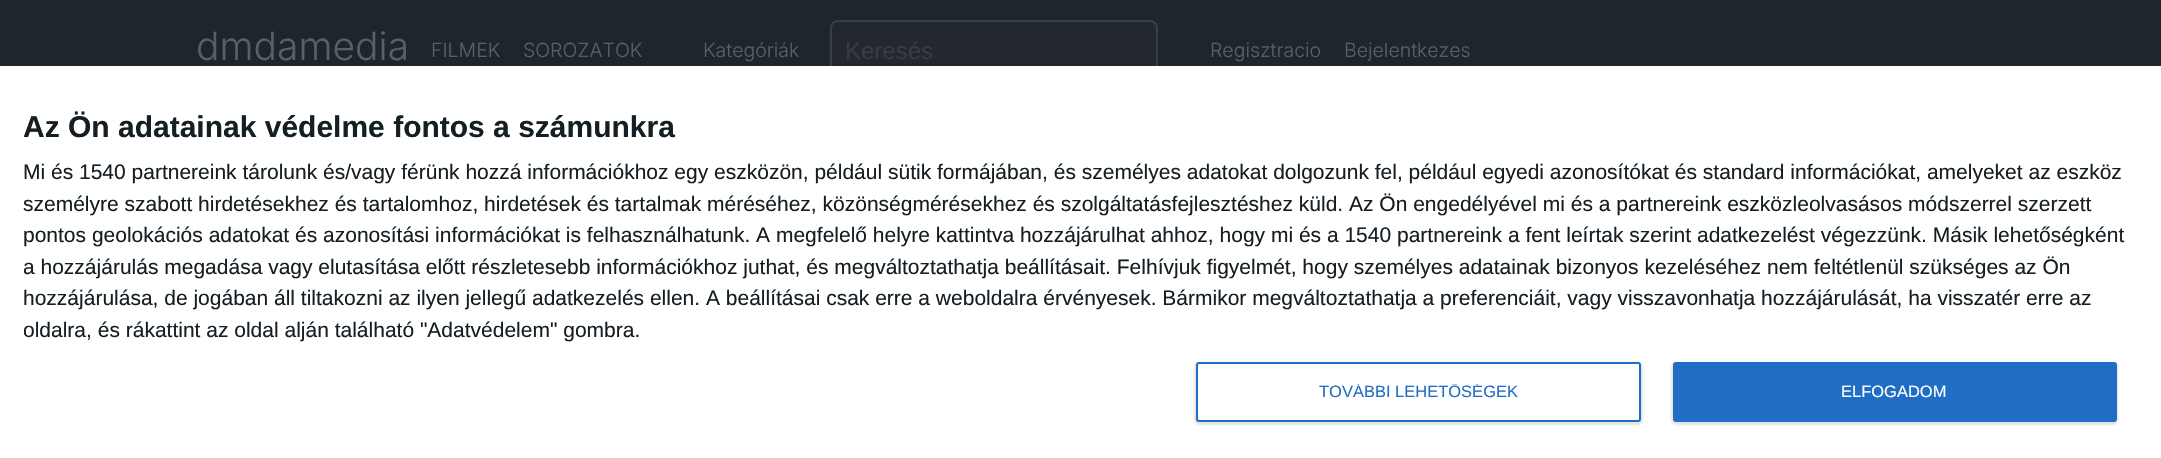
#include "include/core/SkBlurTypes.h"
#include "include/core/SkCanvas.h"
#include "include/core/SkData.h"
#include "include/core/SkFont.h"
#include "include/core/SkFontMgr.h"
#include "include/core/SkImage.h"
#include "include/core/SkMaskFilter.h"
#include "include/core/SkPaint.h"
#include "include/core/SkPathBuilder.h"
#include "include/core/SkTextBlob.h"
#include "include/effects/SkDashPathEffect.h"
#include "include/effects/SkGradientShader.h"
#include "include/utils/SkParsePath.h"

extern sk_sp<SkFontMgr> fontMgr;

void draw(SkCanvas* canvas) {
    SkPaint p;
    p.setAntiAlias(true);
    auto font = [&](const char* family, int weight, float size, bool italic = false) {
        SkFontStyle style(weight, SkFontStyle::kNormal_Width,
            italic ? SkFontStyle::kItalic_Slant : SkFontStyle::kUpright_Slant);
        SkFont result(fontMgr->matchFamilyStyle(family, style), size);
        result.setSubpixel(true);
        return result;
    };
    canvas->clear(0xFF1F252D);
    auto font1 = font("Inter", 300, 39);
    p.setColor(0xFF595F67);
    canvas->drawString("dmdamedia", 196, 60, font1, p);
    auto font2 = font("Inter", 300, 19.5f);
    {
        const struct { const char* s; float x, y; } items[] = {
            {"FILMEK", 431, 57},
            {"SOROZATOK", 523, 57},
            {"Kategóriák", 703, 57},
        };
        for (auto [s, x, y] : items) {
            canvas->drawString(s, x, y, font2, p);
        }
    }
    p.setColor(0xFF232830);
    canvas->drawRoundRect(SkRect::MakeLTRB(831, 21, 1157, 82), 7, 7, p);
    p.setStyle(SkPaint::kStroke_Style);
    p.setStrokeWidth(2);
    p.setColor(0xFF393F47);
    canvas->drawRoundRect(SkRect::MakeLTRB(831, 21, 1157, 82), 7, 7, p);
    auto font3 = font("Liberation Sans", 400, 24);
    p.setStyle(SkPaint::kFill_Style);
    p.setColor(0xFF363C44);
    canvas->drawString("Keresés", 845, 59, font3, p);
    p.setColor(0xFF595F67);
    canvas->drawString("Regisztracio", 1210, 57, font2, p);
    canvas->drawString("Bejelentkezes", 1344, 57, font2, p);
    p.setColor(0xFFFFFFFF);
    canvas->drawRect(SkRect::MakeLTRB(0, 66, 2161, 458), p);
    auto font4 = font("Liberation Sans", 700, 30);
    p.setColor(0xFF141E23);
    canvas->drawString("Az Ön adatainak védelme fontos a számunkra", 23, 137, font4, p);
    auto font5 = font("Liberation Sans", 400, 21);
    {
        const struct { const char* s; float x, y; } items[] = {
            {"Mi és 1540 partnereink tárolunk és/vagy férünk hozzá információkhoz egy eszközön, például sütik formájában, és személyes adatokat dolgozunk fel, például egyedi azonosítókat és standard információkat, amelyeket az eszköz", 23, 179},
            {"személyre szabott hirdetésekhez és tartalomhoz, hirdetések és tartalmak méréséhez, közönségmérésekhez és szolgáltatásfejlesztéshez küld. Az Ön engedélyével mi és a partnereink eszközleolvasásos módszerrel szerzett", 23, 211},
            {"pontos geolokációs adatokat és azonosítási információkat is felhasználhatunk. A megfelelő helyre kattintva hozzájárulhat ahhoz, hogy mi és a 1540 partnereink a fent leírtak szerint adatkezelést végezzünk. Másik lehetőségként", 23, 242},
            {"a hozzájárulás megadása vagy elutasítása előtt részletesebb információkhoz juthat, és megváltoztathatja beállításait. Felhívjuk figyelmét, hogy személyes adatainak bizonyos kezeléséhez nem feltétlenül szükséges az Ön", 23, 274},
            {"hozzájárulása, de jogában áll tiltakozni az ilyen jellegű adatkezelés ellen. A beállításai csak erre a weboldalra érvényesek. Bármikor megváltoztathatja a preferenciáit, vagy visszavonhatja hozzájárulását, ha visszatér erre az", 23, 305},
            {"oldalra, és rákattint az oldal alján található \"Adatvédelem\" gombra.", 23, 337},
        };
        for (auto [s, x, y] : items) {
            canvas->drawString(s, x, y, font5, p);
        }
    }
    p.setColor(0x1A000000);
    p.setMaskFilter(SkMaskFilter::MakeBlur(kNormal_SkBlurStyle, 1));
    canvas->drawRoundRect(SkRect::MakeLTRB(1194, 362, 1643, 425), 5, 5, p);
    p.setMaskFilter(nullptr);
    p.setColor(0xFFFFFFFF);
    canvas->drawRoundRect(SkRect::MakeLTRB(1197, 363, 1640, 421), 2, 2, p);
    p.setStyle(SkPaint::kStroke_Style);
    p.setColor(0xFF206DC5);
    canvas->drawRoundRect(SkRect::MakeLTRB(1197, 363, 1640, 421), 2, 2, p);
    canvas->save();
    canvas->clipRect(SkRect::MakeLTRB(1319, 384, 1518, 401));
    auto font6 = font("Liberation Sans", 400, 16.5f);
    p.setStyle(SkPaint::kFill_Style);
    canvas->drawString("TOVÁBBI LEHETŐSÉGEK", 1319, 397, font6, p);
    canvas->restore();
    p.setColor(0x1A000000);
    p.setMaskFilter(SkMaskFilter::MakeBlur(kNormal_SkBlurStyle, 1));
    canvas->drawRoundRect(SkRect::MakeLTRB(1671, 362, 2118, 425), 5, 5, p);
    p.setMaskFilter(nullptr);
    p.setColor(0xFF206DC5);
    canvas->drawRoundRect(SkRect::MakeLTRB(1673, 362, 2117, 422), 3, 3, p);
    p.setColor(0xFFFFFFFF);
    canvas->drawString("ELFOGADOM", 1841, 397, font6, p);
}
